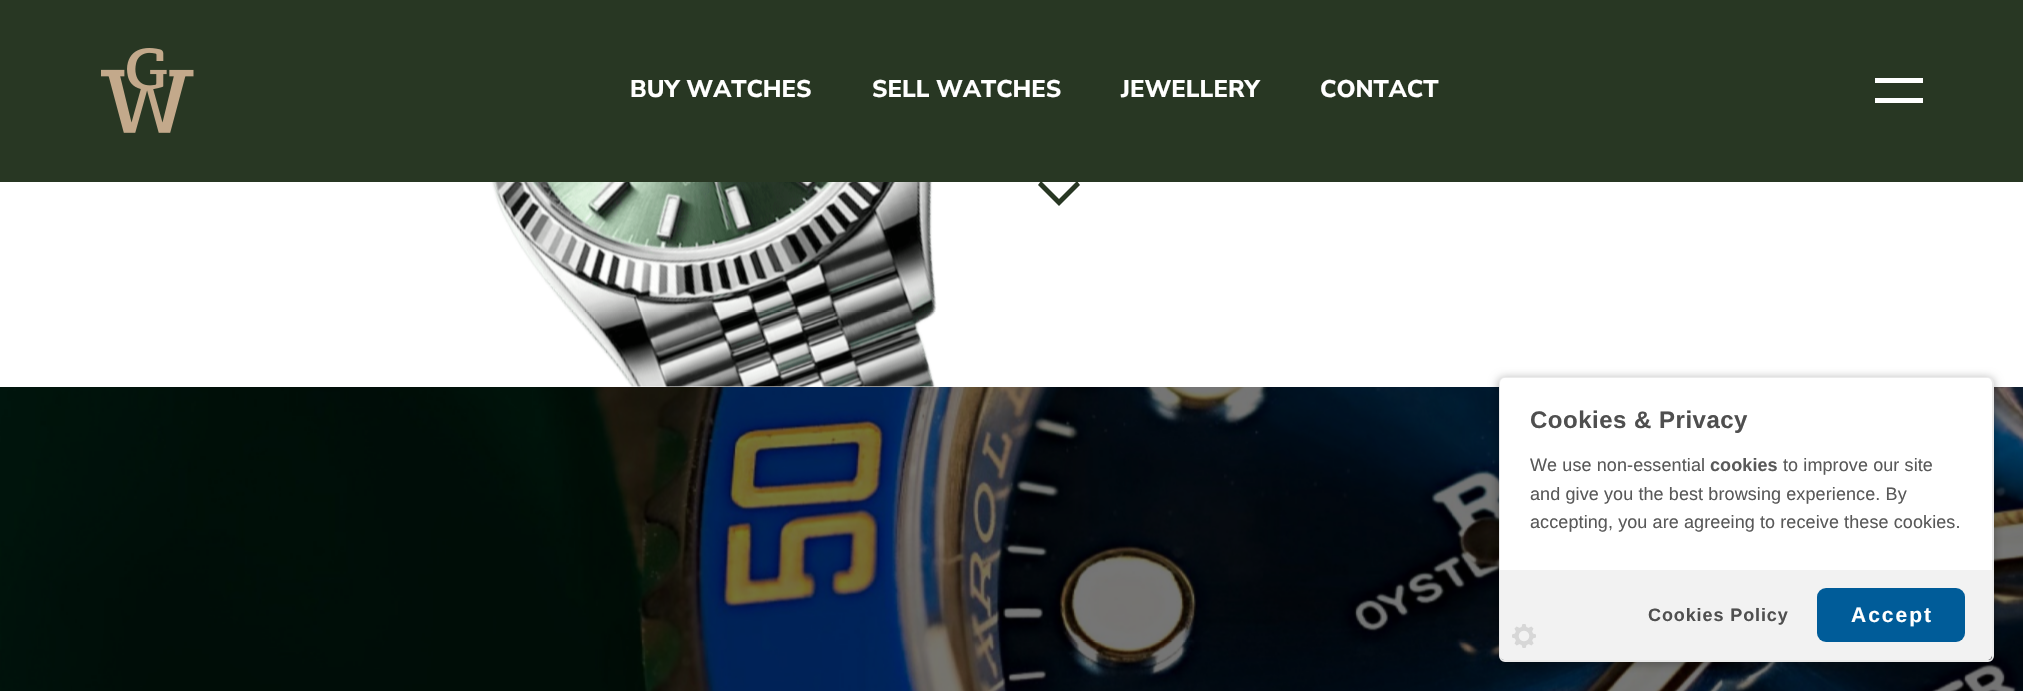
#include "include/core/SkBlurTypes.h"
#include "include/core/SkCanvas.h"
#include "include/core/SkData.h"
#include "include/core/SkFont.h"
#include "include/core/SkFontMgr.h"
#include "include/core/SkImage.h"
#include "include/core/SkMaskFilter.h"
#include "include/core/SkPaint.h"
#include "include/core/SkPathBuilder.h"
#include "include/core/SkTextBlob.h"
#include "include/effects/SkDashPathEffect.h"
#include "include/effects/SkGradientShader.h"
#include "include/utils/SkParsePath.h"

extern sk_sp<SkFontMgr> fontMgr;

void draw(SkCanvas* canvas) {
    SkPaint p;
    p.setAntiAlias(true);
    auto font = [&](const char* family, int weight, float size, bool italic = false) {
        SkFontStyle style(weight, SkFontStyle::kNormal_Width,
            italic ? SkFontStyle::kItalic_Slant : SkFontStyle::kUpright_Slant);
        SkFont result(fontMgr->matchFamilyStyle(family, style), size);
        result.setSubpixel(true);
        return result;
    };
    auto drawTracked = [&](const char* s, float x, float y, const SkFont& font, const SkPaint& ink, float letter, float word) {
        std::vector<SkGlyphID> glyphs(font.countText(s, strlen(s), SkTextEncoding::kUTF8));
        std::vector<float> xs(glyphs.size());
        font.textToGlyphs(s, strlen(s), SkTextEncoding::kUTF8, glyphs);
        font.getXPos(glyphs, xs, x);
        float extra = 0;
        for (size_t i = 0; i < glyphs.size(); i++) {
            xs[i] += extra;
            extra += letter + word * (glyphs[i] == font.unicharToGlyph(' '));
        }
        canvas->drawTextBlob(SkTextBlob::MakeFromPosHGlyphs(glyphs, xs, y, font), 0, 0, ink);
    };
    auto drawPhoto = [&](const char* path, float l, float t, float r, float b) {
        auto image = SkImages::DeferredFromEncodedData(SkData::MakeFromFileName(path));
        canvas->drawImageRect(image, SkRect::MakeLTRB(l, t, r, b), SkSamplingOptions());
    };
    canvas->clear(0xFFFFFFFF);
    p.setColor(0xFF283723);
    canvas->drawPath(SkPathBuilder(SkPathFillType::kEvenOdd).moveTo(1038, 185).lineTo(1041, 181).lineTo(1059, 199).lineTo(1077, 181).lineTo(1080, 185).lineTo(1059, 206).close().detach(), p);
    canvas->drawRect(SkRect::MakeLTRB(0, 0, 2023, 182), p);
    drawPhoto("media/1.png", 101, 48, 194, 133);
    auto font1 = font("Nunito Sans", 800, 24);
    p.setColor(0xFFFFFFFF);
    {
        const struct { const char* s; float x, y; } items[] = {
            {"BUY WATCHES", 630, 97},
            {"SELL WATCHES", 872, 97},
            {"JEWELLERY", 1121, 97},
            {"CONTACT", 1320, 97},
        };
        for (auto [s, x, y] : items) {
            canvas->drawString(s, x, y, font1, p);
        }
    }
    canvas->drawRect(SkRect::MakeLTRB(1875, 78, 1923, 83), p);
    canvas->drawRect(SkRect::MakeLTRB(1875, 98, 1923, 103), p);
    drawPhoto("media/2.png", 490, 182, 937, 387);
    drawPhoto("media/3.png", 0, 387, 2023, 691);
    p.setColor(0x40000000);
    p.setMaskFilter(SkMaskFilter::MakeBlur(kNormal_SkBlurStyle, 4.5f));
    canvas->drawRoundRect(SkRect::MakeLTRB(1497, 377, 1995, 665), 8, 8, p);
    p.setMaskFilter(nullptr);
    p.setStyle(SkPaint::kStroke_Style);
    p.setStrokeWidth(2);
    p.setColor(0xFFEBEBEB);
    canvas->drawRoundRect(SkRect::MakeLTRB(1500, 378, 1993, 661), 5, 5, p);
    p.setStyle(SkPaint::kFill_Style);
    p.setColor(0xFFFFFFFF);
    canvas->drawPath(SkPathBuilder().moveTo(1505, 378).lineTo(1987, 378).cubicTo(1990, 378, 1992, 380, 1992, 383).lineTo(1992, 570).lineTo(1500, 570).lineTo(1500, 383).cubicTo(1500, 380, 1502, 378, 1505, 378).close().detach(), p);
    auto font2 = font("Liberation Sans", 700, 24);
    p.setColor(0xFF4F4F4F);
    drawTracked("Cookies & Privacy", 1530, 428, font2, p, 0.5f, 0);
    auto font3 = font("Liberation Sans", 400, 18);
    p.setColor(0xFF595959);
    drawTracked("We use non-essential", 1530, 471, font3, p, 0.1f, 0);
    auto font4 = font("Liberation Sans", 700, 18);
    drawTracked("cookies", 1710, 471, font4, p, 0.1f, 0);
    {
        const struct { const char* s; float x, y; } items[] = {
            {"to improve our site", 1783, 471},
            {"and give you the best browsing experience. By", 1530, 500},
            {"accepting, you are agreeing to receive these cookies.", 1530, 528},
        };
        for (auto [s, x, y] : items) {
            drawTracked(s, x, y, font3, p, 0.1f, 0);
        }
    }
    p.setColor(0xFFF2F2F2);
    canvas->drawPath(SkPathBuilder().moveTo(1500, 570).lineTo(1992, 570).lineTo(1992, 655).cubicTo(1992, 658, 1990, 660, 1987, 660).lineTo(1505, 660).cubicTo(1502, 660, 1500, 658, 1500, 655).close().detach(), p);
    p.setColor(0xFF4F4F4F);
    drawTracked("Cookies Policy", 1648, 621, font4, p, 0.9f, 0);
    p.setColor(0xFF005C99);
    canvas->drawRoundRect(SkRect::MakeLTRB(1817, 588, 1965, 642), 9, 9, p);
    auto font5 = font("Liberation Sans", 700, 21);
    p.setColor(0xFFFFFFFF);
    drawTracked("Accept", 1851, 622, font5, p, 2, 0);
    drawPhoto("media/4.png", 1512, 624, 1536, 648);
}
